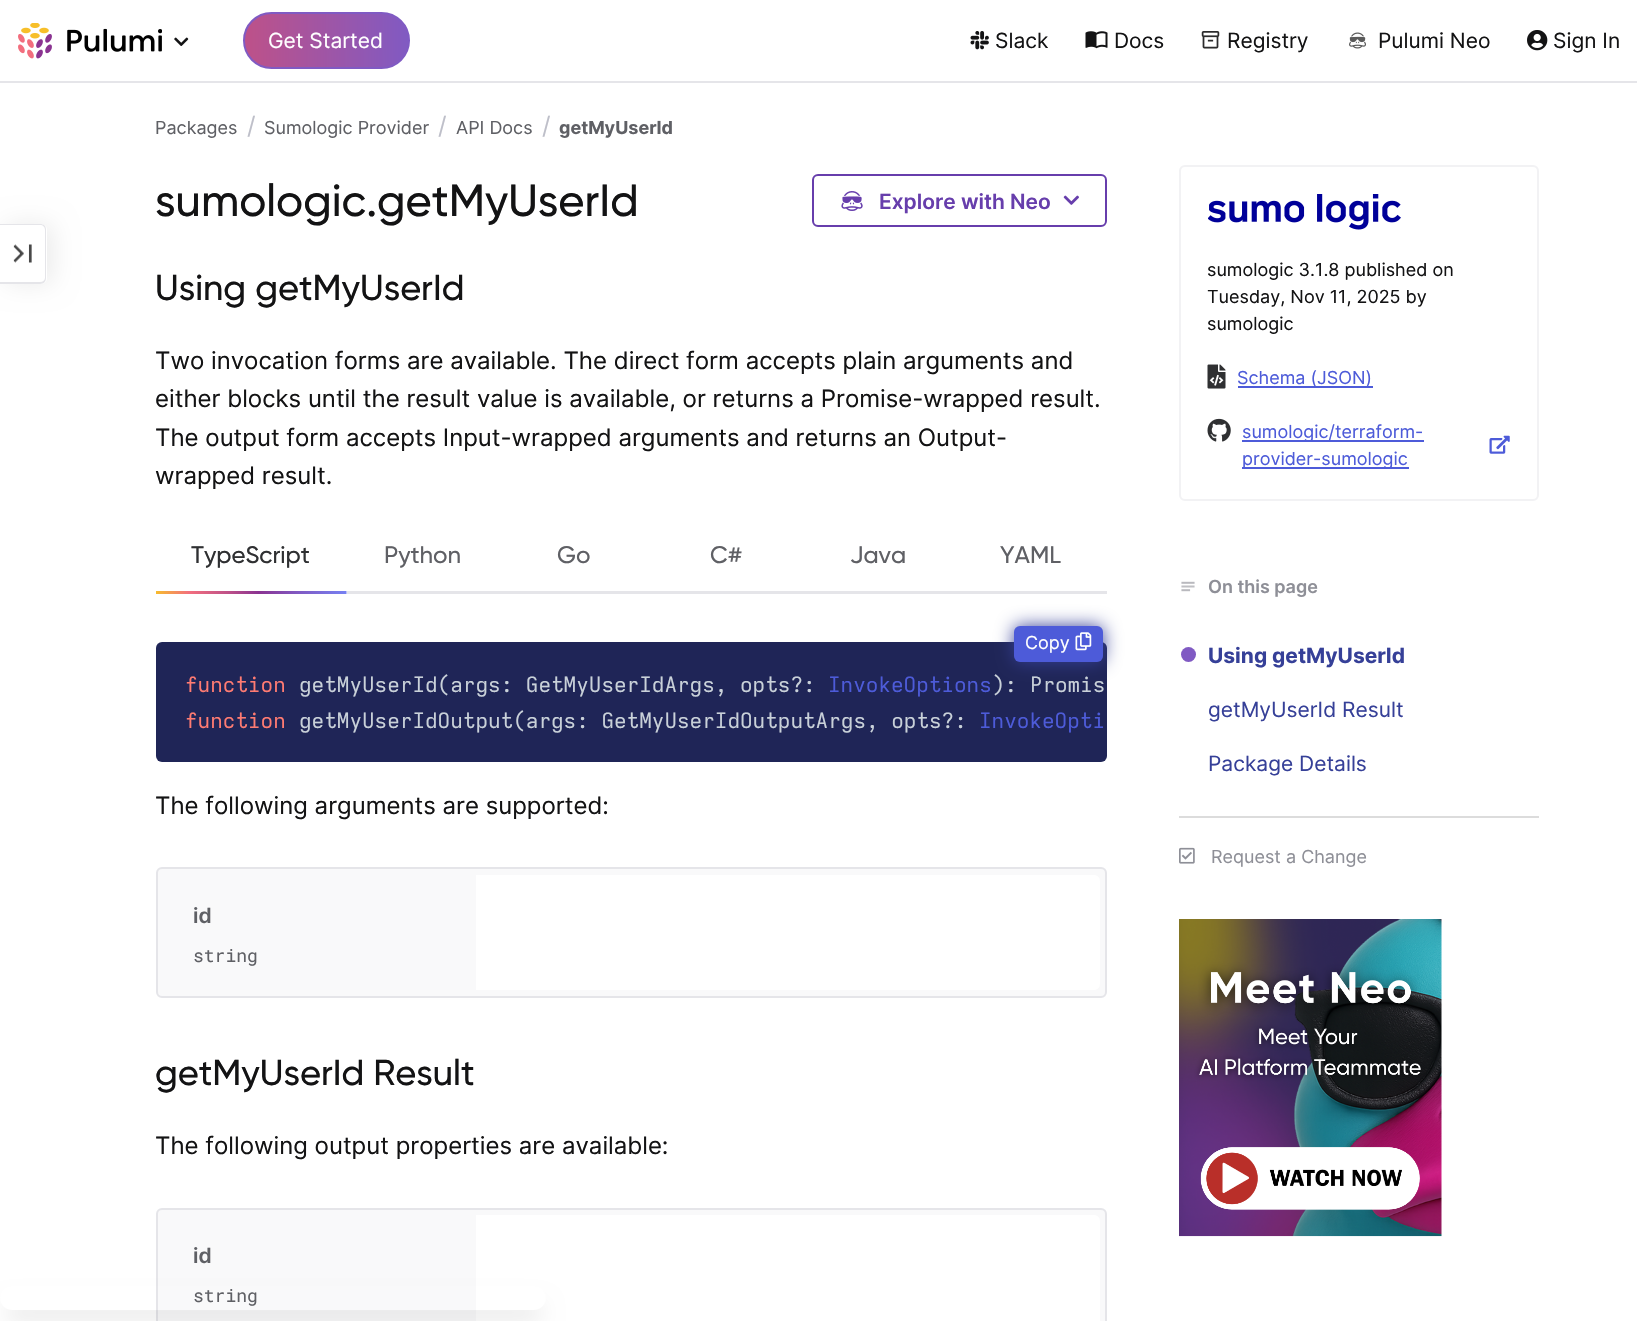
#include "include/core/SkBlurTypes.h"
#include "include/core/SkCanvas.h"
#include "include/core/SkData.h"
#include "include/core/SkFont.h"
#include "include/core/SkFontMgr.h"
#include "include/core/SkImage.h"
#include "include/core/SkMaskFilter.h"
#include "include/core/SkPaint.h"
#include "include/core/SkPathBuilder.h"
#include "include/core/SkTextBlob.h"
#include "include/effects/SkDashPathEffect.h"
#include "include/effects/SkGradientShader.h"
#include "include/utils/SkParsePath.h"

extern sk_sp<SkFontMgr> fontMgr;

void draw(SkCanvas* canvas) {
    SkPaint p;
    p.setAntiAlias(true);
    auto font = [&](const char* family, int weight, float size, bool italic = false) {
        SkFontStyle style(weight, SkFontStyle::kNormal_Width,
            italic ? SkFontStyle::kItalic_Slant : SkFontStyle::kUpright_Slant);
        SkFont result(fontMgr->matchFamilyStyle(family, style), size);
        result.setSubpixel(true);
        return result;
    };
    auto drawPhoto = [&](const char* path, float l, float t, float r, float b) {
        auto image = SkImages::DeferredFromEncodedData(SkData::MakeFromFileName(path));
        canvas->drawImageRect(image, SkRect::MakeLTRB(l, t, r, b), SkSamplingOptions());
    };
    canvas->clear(0xFFFFFFFF);
    p.setColor(0xFFE5E5E9);
    canvas->drawRect(SkRect::MakeLTRB(0, 81, 1637, 83), p);
    drawPhoto("media/1.png", 18, 23, 162, 59);
    drawPhoto("media/2.png", 174, 37, 189, 46);
    {
        const SkColor colors[] = {0xFFBE5188, 0xFF805AC3};
        const float stops[] = {0, 1};
        const SkPoint ends[] = {{243, 41}, {410, 40}};
        p.setShader(SkGradientShader::MakeLinear(ends, colors, stops, 2, SkTileMode::kClamp));
        p.setAlpha(255);
    }
    canvas->drawRoundRect(SkRect::MakeLTRB(244, 13, 409, 68), 27.5f, 27.5f, p);
    p.setStyle(SkPaint::kStroke_Style);
    p.setStrokeWidth(2);
    p.setShader(nullptr);
    p.setColor(0xFF805AC3);
    canvas->drawRoundRect(SkRect::MakeLTRB(244, 13, 409, 68), 27.5f, 27.5f, p);
    auto font1 = font("Inter", 400, 21);
    p.setStyle(SkPaint::kFill_Style);
    p.setColor(0xFFFFFFFF);
    canvas->drawString("Get Started", 268, 48, font1, p);
    drawPhoto("media/3.png", 970, 31, 989, 50);
    p.setColor(0xFF131314);
    canvas->drawString("Slack", 995, 48, font1, p);
    drawPhoto("media/4.png", 1085, 31, 1108, 49);
    canvas->drawString("Docs", 1114, 48, font1, p);
    drawPhoto("media/5.png", 1201, 31, 1220, 49);
    canvas->drawString("Registry", 1227, 48, font1, p);
    drawPhoto("media/6.png", 1349, 32, 1366, 49);
    canvas->drawString("Pulumi Neo", 1378, 48, font1, p);
    drawPhoto("media/7.png", 1527, 30, 1548, 51);
    canvas->drawString("Sign In", 1553, 48, font1, p);
    canvas->save();
    canvas->clipPath(SkPathBuilder(SkPathFillType::kEvenOdd).moveTo(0, 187).lineTo(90, 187).lineTo(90, 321).lineTo(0, 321).close().moveTo(-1, 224).lineTo(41, 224).cubicTo(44.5f, 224, 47, 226.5f, 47, 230).lineTo(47, 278).cubicTo(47, 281.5f, 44.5f, 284, 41, 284).lineTo(-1, 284).close().detach(), true);
    p.setColor(0x14000000);
    p.setMaskFilter(SkMaskFilter::MakeBlur(kNormal_SkBlurStyle, 12));
    canvas->drawRoundRect(SkRect::MakeLTRB(5, 224, 53, 284), 6, 6, p);
    p.setMaskFilter(nullptr);
    canvas->restore();
    p.setColor(0xFFE5E5E9);
    canvas->drawPath(SkPathBuilder(SkPathFillType::kEvenOdd).moveTo(-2, 224).lineTo(40, 224).cubicTo(44, 224, 46, 226, 46, 230).lineTo(46, 278).cubicTo(46, 281, 44, 284, 40, 284).lineTo(-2, 284).close().moveTo(-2, 225).lineTo(40, 225).cubicTo(43, 225, 45, 227, 45, 230).lineTo(45, 278).cubicTo(45, 280, 43, 282, 40, 282).lineTo(-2, 282).close().detach(), p);
    drawPhoto("media/8.png", 13, 244, 32, 263);
    auto font2 = font("Inter", 400, 18);
    p.setColor(0xFF5F6065);
    canvas->drawString("Packages", 155, 134, font2, p);
    auto font3 = font("Inter", 400, 24);
    p.setColor(0xFFBEBFC9);
    canvas->drawString("/", 247, 134, font3, p);
    p.setColor(0xFF5F6065);
    canvas->drawString("Sumologic Provider", 264, 134, font2, p);
    p.setColor(0xFFBEBFC9);
    canvas->drawString("/", 438, 134, font3, p);
    p.setColor(0xFF5F6065);
    canvas->drawString("API Docs", 456, 134, font2, p);
    p.setColor(0xFFBEBFC9);
    canvas->drawString("/", 542, 134, font3, p);
    auto font4 = font("Inter", 700, 18);
    p.setColor(0xFF5F6065);
    canvas->drawString("getMyUserId", 559, 134, font4, p);
    auto font5 = font("Gilroy", 500, 45);
    p.setColor(0xFF131314);
    canvas->drawString("sumologic.getMyUserId", 155, 216, font5, p);
    p.setStyle(SkPaint::kStroke_Style);
    p.setColor(0xFF673EAC);
    canvas->drawRoundRect(SkRect::MakeLTRB(813, 175, 1106, 226), 5, 5, p);
    drawPhoto("media/9.png", 841, 191, 863, 211);
    auto font6 = font("Inter", 600, 21);
    p.setStyle(SkPaint::kFill_Style);
    canvas->drawString("Explore with Neo", 879, 209, font6, p);
    drawPhoto("media/10.png", 1063, 195, 1079, 205);
    auto font7 = font("Gilroy", 500, 36);
    p.setColor(0xFF131314);
    canvas->drawString("Using getMyUserId", 155, 300, font7, p);
    {
        const struct { const char* s; float x, y; } items[] = {
            {"Two invocation forms are available. The direct form accepts plain arguments and", 155, 369},
            {"either blocks until the result value is available, or returns a Promise-wrapped result.", 155, 407},
            {"The output form accepts Input-wrapped arguments and returns an Output-", 155, 446},
            {"wrapped result.", 155, 484},
        };
        for (auto [s, x, y] : items) {
            canvas->drawString(s, x, y, font3, p);
        }
    }
    drawPhoto("media/11.png", 156, 591, 347, 594);
    auto font8 = font("Gilroy", 500, 24);
    p.setColor(0xFF2F3032);
    canvas->drawString("TypeScript", 191, 563, font8, p);
    p.setColor(0xFFE5E5E9);
    canvas->drawRect(SkRect::MakeLTRB(347, 591, 1107, 594), p);
    p.setColor(0xFF5F6065);
    {
        const struct { const char* s; float x, y; } items[] = {
            {"Python", 384, 563},
            {"Go", 557, 563},
            {"C#", 710, 563},
            {"Java", 850, 563},
            {"YAML", 1000, 563},
        };
        for (auto [s, x, y] : items) {
            canvas->drawString(s, x, y, font8, p);
        }
    }
    p.setColor(0xFF1F2557);
    canvas->drawRoundRect(SkRect::MakeLTRB(156, 642, 1107, 762), 6, 6, p);
    p.setColor(0xFF364098);
    p.setMaskFilter(SkMaskFilter::MakeBlur(kNormal_SkBlurStyle, 9));
    canvas->drawRoundRect(SkRect::MakeLTRB(1014, 626, 1103, 662), 6, 6, p);
    p.setMaskFilter(nullptr);
    p.setColor(0xFF4D5BD9);
    canvas->drawRoundRect(SkRect::MakeLTRB(1014, 626, 1103, 662), 6, 6, p);
    p.setColor(0xFFFFFFFF);
    canvas->drawString("Copy", 1025, 649, font2, p);
    drawPhoto("media/12.png", 1075, 632, 1092, 651);
    auto font9 = font("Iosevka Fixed", 400, 21);
    p.setColor(0xFFFF7B72);
    canvas->drawString("function", 185, 692, font9, p);
    p.setColor(0xFFC9D1D9);
    canvas->drawString("getMyUserId(args: GetMyUserIdArgs, opts?:", 299, 692, font9, p);
    p.setColor(0xFF4D5BD9);
    canvas->drawString("InvokeOptions", 828, 692, font9, p);
    p.setColor(0xFFC9D1D9);
    canvas->drawString("): Promis", 992, 692, font9, p);
    p.setColor(0xFFFF7B72);
    canvas->drawString("function", 185, 728, font9, p);
    p.setColor(0xFFC9D1D9);
    canvas->drawString("getMyUserIdOutput(args: GetMyUserIdOutputArgs, opts?:", 299, 728, font9, p);
    p.setColor(0xFF4D5BD9);
    canvas->drawString("InvokeOpti", 979, 728, font9, p);
    p.setColor(0xFF131314);
    canvas->drawString("The following arguments are supported:", 155, 814, font3, p);
    p.setColor(0xFFF9F9FA);
    canvas->drawRoundRect(SkRect::MakeLTRB(157, 868, 1106, 997), 5, 5, p);
    p.setStyle(SkPaint::kStroke_Style);
    p.setColor(0xFFE5E5E9);
    canvas->drawRoundRect(SkRect::MakeLTRB(157, 868, 1106, 997), 5, 5, p);
    p.setStyle(SkPaint::kFill_Style);
    p.setColor(0xFF5F6065);
    canvas->drawString("id", 193, 923, font6, p);
    auto font10 = font("Roboto Mono", 400, 18);
    canvas->drawString("string", 193, 962, font10, p);
    p.setColor(0xFFFFFFFF);
    canvas->drawPath(SkPathBuilder().moveTo(476, 875).lineTo(1094, 875).cubicTo(1097.5f, 875, 1100, 877.5f, 1100, 881).lineTo(1100, 984).cubicTo(1100, 987.5f, 1097.5f, 990, 1094, 990).lineTo(476, 990).close().detach(), p);
    p.setColor(0xFF131314);
    canvas->drawString("getMyUserId Result", 155, 1085, font7, p);
    canvas->drawString("The following output properties are available:", 155, 1154, font3, p);
    p.setColor(0xFFF9F9FA);
    canvas->drawRoundRect(SkRect::MakeLTRB(157, 1209, 1106, 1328), 5, 5, p);
    p.setStyle(SkPaint::kStroke_Style);
    p.setColor(0xFFE5E5E9);
    canvas->drawRoundRect(SkRect::MakeLTRB(157, 1209, 1106, 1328), 5, 5, p);
    p.setStyle(SkPaint::kFill_Style);
    p.setColor(0xFF5F6065);
    canvas->drawString("id", 193, 1263, font6, p);
    canvas->drawString("string", 193, 1302, font10, p);
    p.setColor(0xFFFFFFFF);
    canvas->drawPath(SkPathBuilder().moveTo(476, 1215).lineTo(1094, 1215).cubicTo(1097.5f, 1215, 1100, 1217.5f, 1100, 1221).lineTo(1100, 1321).cubicTo(1100, 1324.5f, 1097.5f, 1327, 1094, 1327).lineTo(476, 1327).close().detach(), p);
    p.setStyle(SkPaint::kStroke_Style);
    p.setColor(0xFFF2F2F4);
    canvas->drawRoundRect(SkRect::MakeLTRB(1180, 166, 1538, 500), 5, 5, p);
    drawPhoto("media/13.png", 1208, 194, 1401, 230);
    p.setStyle(SkPaint::kFill_Style);
    p.setColor(0xFF131314);
    {
        const struct { const char* s; float x, y; } items[] = {
            {"sumologic 3.1.8 published on", 1207, 276},
            {"Tuesday, Nov 11, 2025 by", 1207, 303},
            {"sumologic", 1207, 330},
        };
        for (auto [s, x, y] : items) {
            canvas->drawString(s, x, y, font2, p);
        }
    }
    drawPhoto("media/14.png", 1207, 364, 1226, 389);
    p.setColor(0xFF4D5BD9);
    canvas->drawString("Schema (JSON)", 1237, 384, font2, p);
    canvas->drawRect(SkRect::MakeLTRB(1238, 386, 1373, 388), p);
    drawPhoto("media/15.png", 1207, 418, 1231, 442);
    canvas->drawRect(SkRect::MakeLTRB(1242, 440, 1424, 442), p);
    canvas->drawString("sumologic/terraform-", 1242, 438, font2, p);
    canvas->drawRect(SkRect::MakeLTRB(1242, 467, 1409, 469), p);
    canvas->drawString("provider-sumologic", 1242, 465, font2, p);
    drawPhoto("media/16.png", 1489, 435, 1510, 454);
    drawPhoto("media/17.png", 1181, 581, 1195, 592);
    auto font11 = font("Inter", 600, 18);
    p.setColor(0xFF8E8F97);
    canvas->drawString("On this page", 1208, 593, font11, p);
    p.setColor(0xFFDCDCDC);
    canvas->drawRect(SkRect::MakeLTRB(1179, 816, 1539, 818), p);
    p.setColor(0xFF805AC3);
    canvas->drawCircle(1188.5f, 654.5f, 7.5f, p);
    auto font12 = font("Inter", 700, 21);
    p.setColor(0xFF364098);
    canvas->drawString("Using getMyUserId", 1208, 663, font12, p);
    canvas->drawString("getMyUserId Result", 1208, 717, font1, p);
    canvas->drawString("Package Details", 1208, 771, font1, p);
    drawPhoto("media/18.png", 1179, 847, 1195, 864);
    p.setColor(0xFF8E8F97);
    canvas->drawString("Request a Change", 1211, 863, font2, p);
    drawPhoto("media/19.png", 1179, 919, 1442, 1237);
    canvas->save();
    canvas->clipPath(SkPathBuilder(SkPathFillType::kEvenOdd).moveTo(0, 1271).lineTo(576, 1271).lineTo(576, 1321).lineTo(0, 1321).close().moveTo(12, 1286).lineTo(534, 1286).cubicTo(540.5f, 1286, 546, 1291.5f, 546, 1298).cubicTo(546, 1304.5f, 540.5f, 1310, 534, 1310).lineTo(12, 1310).cubicTo(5.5f, 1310, 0, 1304.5f, 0, 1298).cubicTo(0, 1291.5f, 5.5f, 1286, 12, 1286).close().detach(), true);
    p.setColor(0x1A000000);
    p.setMaskFilter(SkMaskFilter::MakeBlur(kNormal_SkBlurStyle, 11));
    canvas->drawRoundRect(SkRect::MakeLTRB(5, 1305, 542, 1320), 7.5f, 7.5f, p);
    p.setMaskFilter(nullptr);
    canvas->restore();
}
